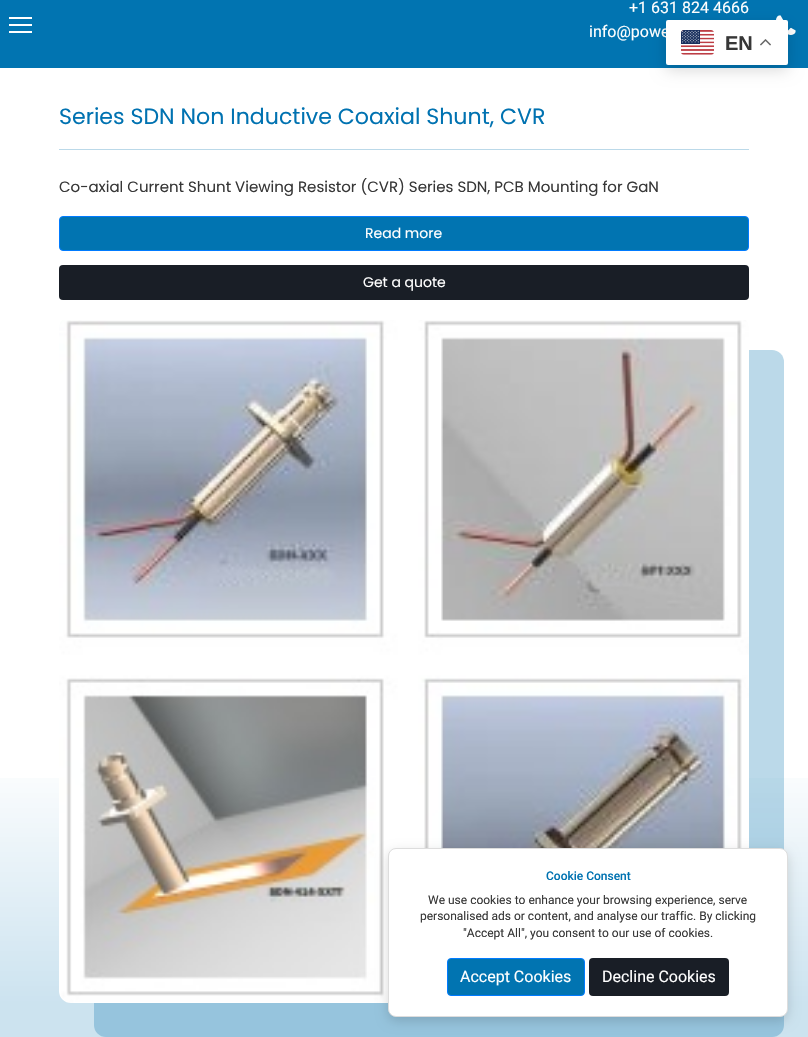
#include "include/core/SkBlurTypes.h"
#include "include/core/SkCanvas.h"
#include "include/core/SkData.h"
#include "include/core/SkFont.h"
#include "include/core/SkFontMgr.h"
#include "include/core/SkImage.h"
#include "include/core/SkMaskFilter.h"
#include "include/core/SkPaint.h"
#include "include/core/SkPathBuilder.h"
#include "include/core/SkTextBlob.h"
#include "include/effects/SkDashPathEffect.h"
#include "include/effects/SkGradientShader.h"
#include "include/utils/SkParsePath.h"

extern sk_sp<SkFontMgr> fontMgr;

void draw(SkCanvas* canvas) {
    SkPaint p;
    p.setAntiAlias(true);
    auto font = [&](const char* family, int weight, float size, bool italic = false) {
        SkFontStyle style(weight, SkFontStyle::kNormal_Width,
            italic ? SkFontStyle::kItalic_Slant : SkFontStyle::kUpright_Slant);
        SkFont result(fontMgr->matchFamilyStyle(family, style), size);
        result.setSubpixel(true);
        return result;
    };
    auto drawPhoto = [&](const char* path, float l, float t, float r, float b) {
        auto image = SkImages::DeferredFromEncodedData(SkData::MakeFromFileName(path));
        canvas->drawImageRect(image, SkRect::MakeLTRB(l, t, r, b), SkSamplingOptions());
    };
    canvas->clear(0xFFFFFFFF);
    p.setColor(0xFF0174B1);
    canvas->drawRect(SkRect::MakeLTRB(0, 0, 808, 68), p);
    auto font1 = font("Roboto", 400, 16);
    p.setColor(0xFFFFFFFF);
    canvas->drawString("+1 631 824 4666", 629, 13, font1, p);
    canvas->drawString("info@powe", 589, 37, font1, p);
    {
        const struct { float l, t, r, b; SkColor color; } items[] = {
            {9, 24, 32, 26, 0xFFFFFFFF},
            {9, 17, 32, 19, 0xFFFFFFFF},
            {9, 31, 32, 33, 0xFFFFFFFF},
        };
        for (auto [l, t, r, b, color] : items) {
            p.setColor(color);
            canvas->drawRect(SkRect::MakeLTRB(l, t, r, b), p);
        }
    }
    drawPhoto("media/1.png", 776, 15, 796, 35);
    p.setColor(0x26000000);
    p.setMaskFilter(SkMaskFilter::MakeBlur(kNormal_SkBlurStyle, 7.5f));
    canvas->drawRoundRect(SkRect::MakeLTRB(666, 25, 788, 70), 2, 2, p);
    p.setMaskFilter(nullptr);
    p.setColor(0xFFFFFFFF);
    canvas->drawRoundRect(SkRect::MakeLTRB(666, 20, 788, 65), 2, 2, p);
    drawPhoto("media/2.png", 681, 30, 714, 55);
    auto font2 = font("Liberation Sans", 700, 20);
    p.setColor(0xFF373737);
    canvas->drawString("EN", 725, 50, font2, p);
    drawPhoto("media/3.png", 760, 39, 771, 46);
    p.setColor(0xFFBBD9E9);
    canvas->drawRect(SkRect::MakeLTRB(59, 149, 749, 150), p);
    auto font3 = font("Poppins", 400, 22.1f);
    p.setColor(0xFF0072B1);
    canvas->drawString("Series SDN Non Inductive Coaxial Shunt, CVR", 59, 124, font3, p);
    auto font4 = font("Poppins", 400, 15);
    p.setColor(0xFF373737);
    canvas->drawString("Co-axial Current Shunt Viewing Resistor (CVR) Series SDN, PCB Mounting for GaN", 59, 192, font4, p);
    p.setColor(0xFF0174B1);
    canvas->drawRoundRect(SkRect::MakeLTRB(59.5f, 216.5f, 748.5f, 250.5f), 3.5f, 3.5f, p);
    p.setStyle(SkPaint::kStroke_Style);
    p.setStrokeWidth(1);
    p.setColor(0xFF007BFF);
    canvas->drawRoundRect(SkRect::MakeLTRB(59.5f, 216.5f, 748.5f, 250.5f), 3.5f, 3.5f, p);
    auto font5 = font("Poppins", 400, 14);
    p.setStyle(SkPaint::kFill_Style);
    p.setColor(0xFFFFFFFF);
    canvas->drawString("Read more", 365, 238, font5, p);
    p.setColor(0xFF191E26);
    canvas->drawRoundRect(SkRect::MakeLTRB(59, 265, 749, 300), 4, 4, p);
    p.setColor(0xFFFFFFFF);
    canvas->drawString("Get a quote", 363, 287, font5, p);
    p.setColor(0xFFBBD9E9);
    canvas->drawRoundRect(SkRect::MakeLTRB(94, 350, 784, 1037), 12, 12, p);
    {
        const SkColor colors[] = {0x000072B1, 0x330072B1};
        const float stops[] = {0, 1};
        const SkPoint ends[] = {{404, 751}, {404, 1003}};
        p.setShader(SkGradientShader::MakeLinear(ends, colors, stops, 2, SkTileMode::kClamp));
        p.setAlpha(255);
    }
    canvas->drawRect(SkRect::MakeLTRB(0, 778, 808, 1003), p);
    drawPhoto("media/4.png", 59, 320, 749, 1003);
    p.setShader(nullptr);
    p.setColor(0x330072B1);
    canvas->drawRect(SkRect::MakeLTRB(0, 1003, 808, 1037), p);
    p.setColor(0x26000000);
    p.setMaskFilter(SkMaskFilter::MakeBlur(kNormal_SkBlurStyle, 6));
    canvas->drawRoundRect(SkRect::MakeLTRB(388, 852, 788, 1021), 8, 8, p);
    p.setMaskFilter(nullptr);
    p.setColor(0xFFFFFFFF);
    canvas->drawRoundRect(SkRect::MakeLTRB(388.5f, 848.5f, 787.5f, 1016.5f), 7.5f, 7.5f, p);
    p.setStyle(SkPaint::kStroke_Style);
    p.setColor(0xFFDDDDDD);
    canvas->drawRoundRect(SkRect::MakeLTRB(388.5f, 848.5f, 787.5f, 1016.5f), 7.5f, 7.5f, p);
    auto font6 = font("Roboto", 500, 12);
    p.setStyle(SkPaint::kFill_Style);
    p.setColor(0xFF0072B1);
    canvas->drawString("Cookie Consent", 546, 880, font6, p);
    auto font7 = font("Roboto", 400, 12);
    p.setColor(0xFF373737);
    {
        const struct { const char* s; float x, y; } items[] = {
            {"We use cookies to enhance your browsing experience, serve", 428, 904},
            {"personalised ads or content, and analyse our traffic. By clicking", 420, 920},
            {"\"Accept All\", you consent to our use of cookies.", 463, 937},
        };
        for (auto [s, x, y] : items) {
            canvas->drawString(s, x, y, font7, p);
        }
    }
    p.setColor(0xFF0174B1);
    canvas->drawRoundRect(SkRect::MakeLTRB(447.5f, 958.5f, 584.5f, 995.5f), 3.5f, 3.5f, p);
    p.setStyle(SkPaint::kStroke_Style);
    p.setColor(0xFF007BFF);
    canvas->drawRoundRect(SkRect::MakeLTRB(447.5f, 958.5f, 584.5f, 995.5f), 3.5f, 3.5f, p);
    p.setStyle(SkPaint::kFill_Style);
    p.setColor(0xFFFFFFFF);
    canvas->drawString("Accept Cookies", 460, 982, font1, p);
    p.setColor(0xFF191E26);
    canvas->drawRoundRect(SkRect::MakeLTRB(589, 958, 729, 996), 4, 4, p);
    p.setColor(0xFFFFFFFF);
    canvas->drawString("Decline Cookies", 602, 982, font1, p);
}
